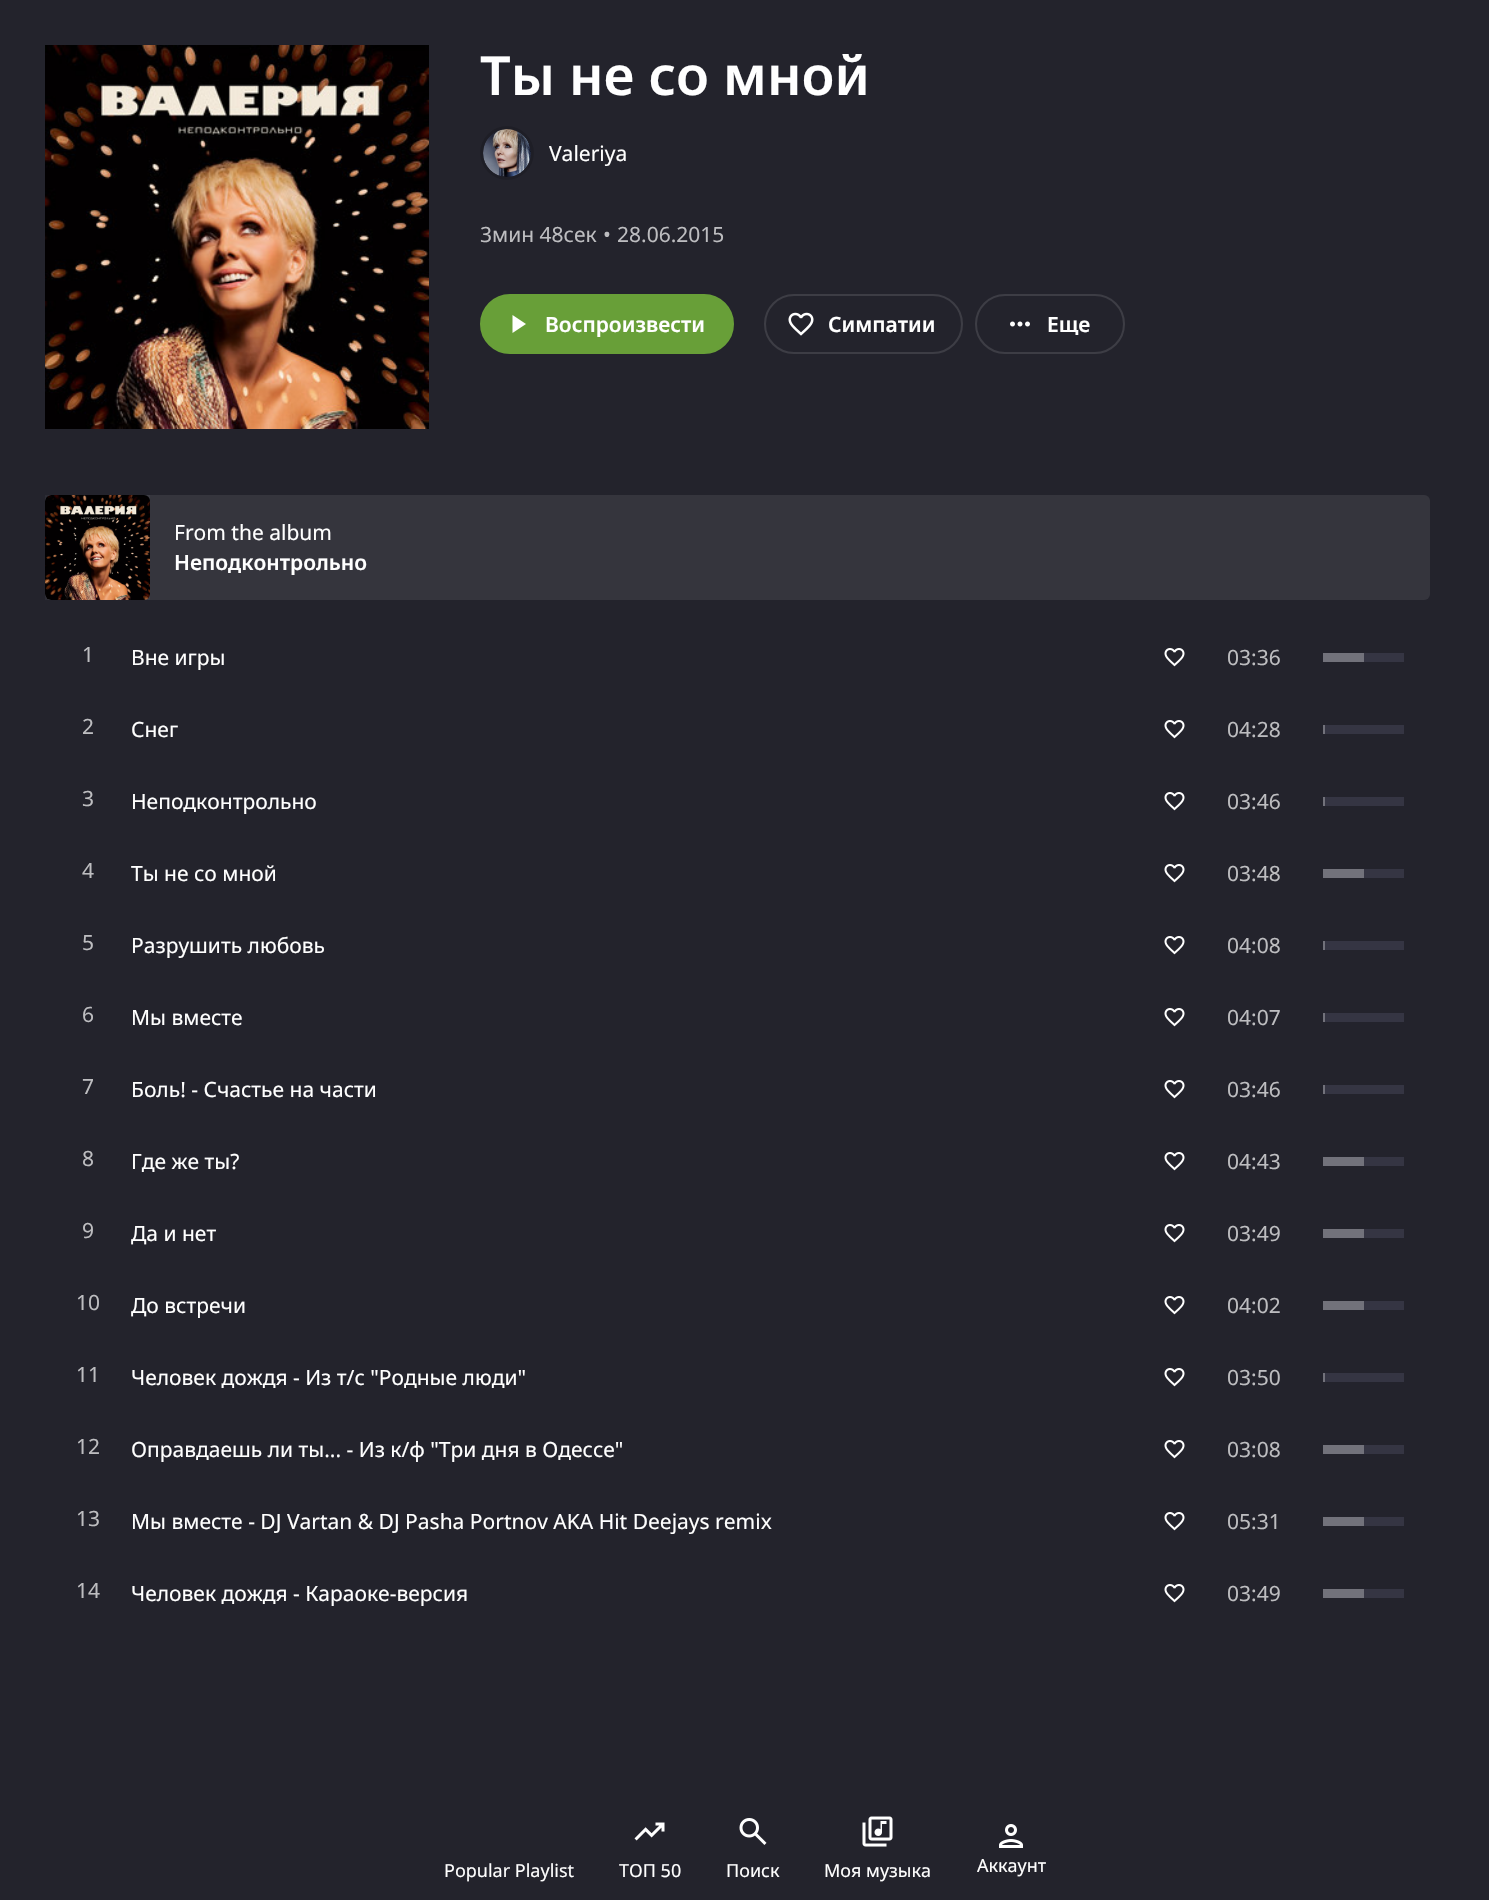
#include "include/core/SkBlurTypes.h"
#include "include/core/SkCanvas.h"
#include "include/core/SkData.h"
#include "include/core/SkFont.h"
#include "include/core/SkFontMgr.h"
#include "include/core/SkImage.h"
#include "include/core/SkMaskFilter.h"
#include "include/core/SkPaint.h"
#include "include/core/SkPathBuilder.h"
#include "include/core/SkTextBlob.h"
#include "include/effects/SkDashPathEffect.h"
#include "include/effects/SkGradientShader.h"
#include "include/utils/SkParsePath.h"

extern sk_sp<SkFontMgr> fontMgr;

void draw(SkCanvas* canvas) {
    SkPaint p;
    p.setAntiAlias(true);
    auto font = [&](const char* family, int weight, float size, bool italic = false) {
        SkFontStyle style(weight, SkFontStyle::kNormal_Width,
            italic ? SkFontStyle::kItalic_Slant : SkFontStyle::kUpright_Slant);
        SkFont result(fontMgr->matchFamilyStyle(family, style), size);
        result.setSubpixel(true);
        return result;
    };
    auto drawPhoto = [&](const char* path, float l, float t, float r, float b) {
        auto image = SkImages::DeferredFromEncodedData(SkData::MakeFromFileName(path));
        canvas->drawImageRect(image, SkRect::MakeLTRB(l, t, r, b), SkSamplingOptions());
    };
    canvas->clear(0xFF23232C);
    drawPhoto("media/1.png", 45, 45, 429, 429);
    auto font1 = font("Noto Sans", 600, 54);
    p.setColor(0xFFFFFFFF);
    canvas->drawString("Ты не со мной", 480, 95, font1, p);
    p.setColor(0xFF1E1E26);
    canvas->drawCircle(507, 153, 27, p);
    drawPhoto("media/2.png", 483, 129, 531, 177);
    auto font2 = font("Noto Sans", 400, 21);
    p.setColor(0xFFFFFFFF);
    canvas->drawString("Valeriya", 549, 161, font2, p);
    p.setColor(0xFFBDBDC0);
    {
        const struct { const char* s; float x, y; } items[] = {
            {"3мин 48сек", 480, 242},
            {"•", 603, 242},
            {"28.06.2015", 617, 242},
        };
        for (auto [s, x, y] : items) {
            canvas->drawString(s, x, y, font2, p);
        }
    }
    p.setColor(0xFF689F38);
    canvas->drawRoundRect(SkRect::MakeLTRB(481, 295, 733, 353), 29, 29, p);
    p.setStyle(SkPaint::kStroke_Style);
    p.setStrokeWidth(2);
    canvas->drawRoundRect(SkRect::MakeLTRB(481, 295, 733, 353), 29, 29, p);
    p.setStyle(SkPaint::kFill_Style);
    p.setColor(0xFFFFFFFF);
    canvas->drawPath(SkPathBuilder().moveTo(512.5f, 333).lineTo(512.5f, 315).lineTo(526, 324).close().detach(), p);
    auto font3 = font("Noto Sans", 600, 21);
    canvas->drawString("Воспроизвести", 545, 332, font3, p);
    p.setStyle(SkPaint::kStroke_Style);
    p.setColor(0xFF3D3D45);
    canvas->drawRoundRect(SkRect::MakeLTRB(765, 295, 962, 353), 29, 29, p);
    drawPhoto("media/3.png", 788, 312, 814, 336);
    p.setStyle(SkPaint::kFill_Style);
    p.setColor(0xFFFFFFFF);
    canvas->drawString("Симпатии", 828, 332, font3, p);
    p.setStyle(SkPaint::kStroke_Style);
    p.setColor(0xFF3D3D45);
    canvas->drawRoundRect(SkRect::MakeLTRB(976, 295, 1124, 353), 29, 29, p);
    drawPhoto("media/4.png", 1010, 321, 1030, 327);
    p.setStyle(SkPaint::kFill_Style);
    p.setColor(0xFFFFFFFF);
    canvas->drawString("Еще", 1047, 332, font3, p);
    p.setColor(0xFF35353D);
    canvas->drawRoundRect(SkRect::MakeLTRB(45, 495, 1430, 600), 6, 6, p);
    p.setColor(0x0AFFFFFF);
    canvas->drawRect(SkRect::MakeLTRB(45, 495, 150, 600), p);
    drawPhoto("media/5.png", 45, 495, 150, 600);
    p.setColor(0xFFFFFFFF);
    canvas->drawString("From the album", 174, 540, font2, p);
    canvas->drawString("Неподконтрольно", 174, 570, font3, p);
    p.setColor(0xFFBDBDC0);
    canvas->drawString("1", 82, 662, font2, p);
    p.setColor(0xFFFFFFFF);
    canvas->drawString("Вне игры", 131, 665, font2, p);
    drawPhoto("media/6.png", 1164, 648, 1185, 667);
    p.setColor(0xFFBDBDC0);
    canvas->drawString("03:36", 1227, 665, font2, p);
    p.setColor(0xFF353543);
    canvas->drawRect(SkRect::MakeLTRB(1364, 653, 1404, 662), p);
    p.setColor(0xFF72727B);
    canvas->drawRect(SkRect::MakeLTRB(1323, 653, 1364, 662), p);
    p.setColor(0xFFBDBDC0);
    canvas->drawString("2", 82, 734, font2, p);
    p.setColor(0xFFFFFFFF);
    canvas->drawString("Снег", 131, 737, font2, p);
    drawPhoto("media/6.png", 1164, 720, 1185, 739);
    p.setColor(0xFFBDBDC0);
    canvas->drawString("04:28", 1227, 737, font2, p);
    p.setColor(0xFF353543);
    canvas->drawRect(SkRect::MakeLTRB(1325, 725, 1404, 734), p);
    p.setColor(0xFF72727B);
    canvas->drawRect(SkRect::MakeLTRB(1323, 725, 1325, 734), p);
    p.setColor(0xFFBDBDC0);
    canvas->drawString("3", 82, 806, font2, p);
    p.setColor(0xFFFFFFFF);
    canvas->drawString("Неподконтрольно", 131, 809, font2, p);
    drawPhoto("media/6.png", 1164, 792, 1185, 811);
    p.setColor(0xFFBDBDC0);
    canvas->drawString("03:46", 1227, 809, font2, p);
    p.setColor(0xFF353543);
    canvas->drawRect(SkRect::MakeLTRB(1325, 797, 1404, 806), p);
    p.setColor(0xFF72727B);
    canvas->drawRect(SkRect::MakeLTRB(1323, 797, 1325, 806), p);
    p.setColor(0xFFBDBDC0);
    canvas->drawString("4", 82, 878, font2, p);
    p.setColor(0xFFFFFFFF);
    canvas->drawString("Ты не со мной", 131, 881, font2, p);
    drawPhoto("media/6.png", 1164, 864, 1185, 883);
    p.setColor(0xFFBDBDC0);
    canvas->drawString("03:48", 1227, 881, font2, p);
    p.setColor(0xFF353543);
    canvas->drawRect(SkRect::MakeLTRB(1364, 869, 1404, 878), p);
    p.setColor(0xFF72727B);
    canvas->drawRect(SkRect::MakeLTRB(1323, 869, 1364, 878), p);
    p.setColor(0xFFBDBDC0);
    canvas->drawString("5", 82, 950, font2, p);
    p.setColor(0xFFFFFFFF);
    canvas->drawString("Разрушить любовь", 131, 953, font2, p);
    drawPhoto("media/6.png", 1164, 936, 1185, 955);
    p.setColor(0xFFBDBDC0);
    canvas->drawString("04:08", 1227, 953, font2, p);
    p.setColor(0xFF353543);
    canvas->drawRect(SkRect::MakeLTRB(1325, 941, 1404, 950), p);
    p.setColor(0xFF72727B);
    canvas->drawRect(SkRect::MakeLTRB(1323, 941, 1325, 950), p);
    p.setColor(0xFFBDBDC0);
    canvas->drawString("6", 82, 1022, font2, p);
    p.setColor(0xFFFFFFFF);
    canvas->drawString("Мы вместе", 131, 1025, font2, p);
    drawPhoto("media/6.png", 1164, 1008, 1185, 1027);
    p.setColor(0xFFBDBDC0);
    canvas->drawString("04:07", 1227, 1025, font2, p);
    p.setColor(0xFF353543);
    canvas->drawRect(SkRect::MakeLTRB(1325, 1013, 1404, 1022), p);
    p.setColor(0xFF72727B);
    canvas->drawRect(SkRect::MakeLTRB(1323, 1013, 1325, 1022), p);
    p.setColor(0xFFBDBDC0);
    canvas->drawString("7", 82, 1094, font2, p);
    p.setColor(0xFFFFFFFF);
    canvas->drawString("Боль! - Счастье на части", 131, 1097, font2, p);
    drawPhoto("media/6.png", 1164, 1080, 1185, 1099);
    p.setColor(0xFFBDBDC0);
    canvas->drawString("03:46", 1227, 1097, font2, p);
    p.setColor(0xFF353543);
    canvas->drawRect(SkRect::MakeLTRB(1325, 1085, 1404, 1094), p);
    p.setColor(0xFF72727B);
    canvas->drawRect(SkRect::MakeLTRB(1323, 1085, 1325, 1094), p);
    p.setColor(0xFFBDBDC0);
    canvas->drawString("8", 82, 1166, font2, p);
    p.setColor(0xFFFFFFFF);
    canvas->drawString("Где же ты?", 131, 1169, font2, p);
    drawPhoto("media/6.png", 1164, 1152, 1185, 1171);
    p.setColor(0xFFBDBDC0);
    canvas->drawString("04:43", 1227, 1169, font2, p);
    p.setColor(0xFF353543);
    canvas->drawRect(SkRect::MakeLTRB(1364, 1157, 1404, 1166), p);
    p.setColor(0xFF72727B);
    canvas->drawRect(SkRect::MakeLTRB(1323, 1157, 1364, 1166), p);
    p.setColor(0xFFBDBDC0);
    canvas->drawString("9", 82, 1238, font2, p);
    canvas->save();
    canvas->clipRect(SkRect::MakeLTRB(131, 1218, 216, 1248));
    p.setColor(0xFFFFFFFF);
    canvas->drawString("Да и нет", 131, 1241, font2, p);
    canvas->restore();
    drawPhoto("media/6.png", 1164, 1224, 1185, 1243);
    p.setColor(0xFFBDBDC0);
    canvas->drawString("03:49", 1227, 1241, font2, p);
    p.setColor(0xFF353543);
    canvas->drawRect(SkRect::MakeLTRB(1364, 1229, 1404, 1238), p);
    p.setColor(0xFF72727B);
    canvas->drawRect(SkRect::MakeLTRB(1323, 1229, 1364, 1238), p);
    p.setColor(0xFFBDBDC0);
    canvas->drawString("10", 76, 1310, font2, p);
    canvas->save();
    canvas->clipRect(SkRect::MakeLTRB(131, 1290, 246, 1320));
    p.setColor(0xFFFFFFFF);
    canvas->drawString("До встречи", 131, 1313, font2, p);
    canvas->restore();
    drawPhoto("media/6.png", 1164, 1296, 1185, 1315);
    p.setColor(0xFFBDBDC0);
    canvas->drawString("04:02", 1227, 1313, font2, p);
    p.setColor(0xFF353543);
    canvas->drawRect(SkRect::MakeLTRB(1364, 1301, 1404, 1310), p);
    p.setColor(0xFF72727B);
    canvas->drawRect(SkRect::MakeLTRB(1323, 1301, 1364, 1310), p);
    p.setColor(0xFFBDBDC0);
    canvas->drawString("11", 76, 1382, font2, p);
    p.setColor(0xFFFFFFFF);
    canvas->drawString("Человек дождя - Из т/с \"Родные люди\"", 131, 1385, font2, p);
    drawPhoto("media/6.png", 1164, 1368, 1185, 1387);
    p.setColor(0xFFBDBDC0);
    canvas->drawString("03:50", 1227, 1385, font2, p);
    p.setColor(0xFF353543);
    canvas->drawRect(SkRect::MakeLTRB(1325, 1373, 1404, 1382), p);
    p.setColor(0xFF72727B);
    canvas->drawRect(SkRect::MakeLTRB(1323, 1373, 1325, 1382), p);
    p.setColor(0xFFBDBDC0);
    canvas->drawString("12", 76, 1454, font2, p);
    p.setColor(0xFFFFFFFF);
    canvas->drawString("Оправдаешь ли ты... - Из к/ф \"Три дня в Одессе\"", 131, 1457, font2, p);
    drawPhoto("media/6.png", 1164, 1440, 1185, 1459);
    p.setColor(0xFFBDBDC0);
    canvas->drawString("03:08", 1227, 1457, font2, p);
    p.setColor(0xFF353543);
    canvas->drawRect(SkRect::MakeLTRB(1364, 1445, 1404, 1454), p);
    p.setColor(0xFF72727B);
    canvas->drawRect(SkRect::MakeLTRB(1323, 1445, 1364, 1454), p);
    p.setColor(0xFFBDBDC0);
    canvas->drawString("13", 76, 1526, font2, p);
    p.setColor(0xFFFFFFFF);
    canvas->drawString("Мы вместе - DJ Vartan & DJ Pasha Portnov AKA Hit Deejays remix", 131, 1529, font2, p);
    drawPhoto("media/6.png", 1164, 1512, 1185, 1531);
    p.setColor(0xFFBDBDC0);
    canvas->drawString("05:31", 1227, 1529, font2, p);
    p.setColor(0xFF353543);
    canvas->drawRect(SkRect::MakeLTRB(1364, 1517, 1404, 1526), p);
    p.setColor(0xFF72727B);
    canvas->drawRect(SkRect::MakeLTRB(1323, 1517, 1364, 1526), p);
    p.setColor(0xFFBDBDC0);
    canvas->drawString("14", 76, 1598, font2, p);
    p.setColor(0xFFFFFFFF);
    canvas->drawString("Человек дождя - Караоке-версия", 131, 1601, font2, p);
    drawPhoto("media/6.png", 1164, 1584, 1185, 1603);
    p.setColor(0xFFBDBDC0);
    canvas->drawString("03:49", 1227, 1601, font2, p);
    p.setColor(0xFF353543);
    canvas->drawRect(SkRect::MakeLTRB(1364, 1589, 1404, 1598), p);
    p.setColor(0xFF72727B);
    canvas->drawRect(SkRect::MakeLTRB(1323, 1589, 1364, 1598), p);
    auto font4 = font("Noto Sans", 400, 18);
    p.setColor(0xFFFFFFFF);
    canvas->drawString("Popular Playlist", 444, 1877, font4, p);
    drawPhoto("media/7.png", 634, 1822, 665, 1841);
    canvas->drawString("ТОП 50", 619, 1877, font4, p);
    drawPhoto("media/8.png", 739, 1818, 767, 1845);
    canvas->drawString("Поиск", 726, 1877, font4, p);
    drawPhoto("media/9.png", 862, 1816, 893, 1847);
    canvas->drawString("Моя музыка", 824, 1877, font4, p);
    drawPhoto("media/10.png", 999, 1824, 1023, 1848);
    canvas->drawString("Аккаунт", 977, 1872, font4, p);
}
